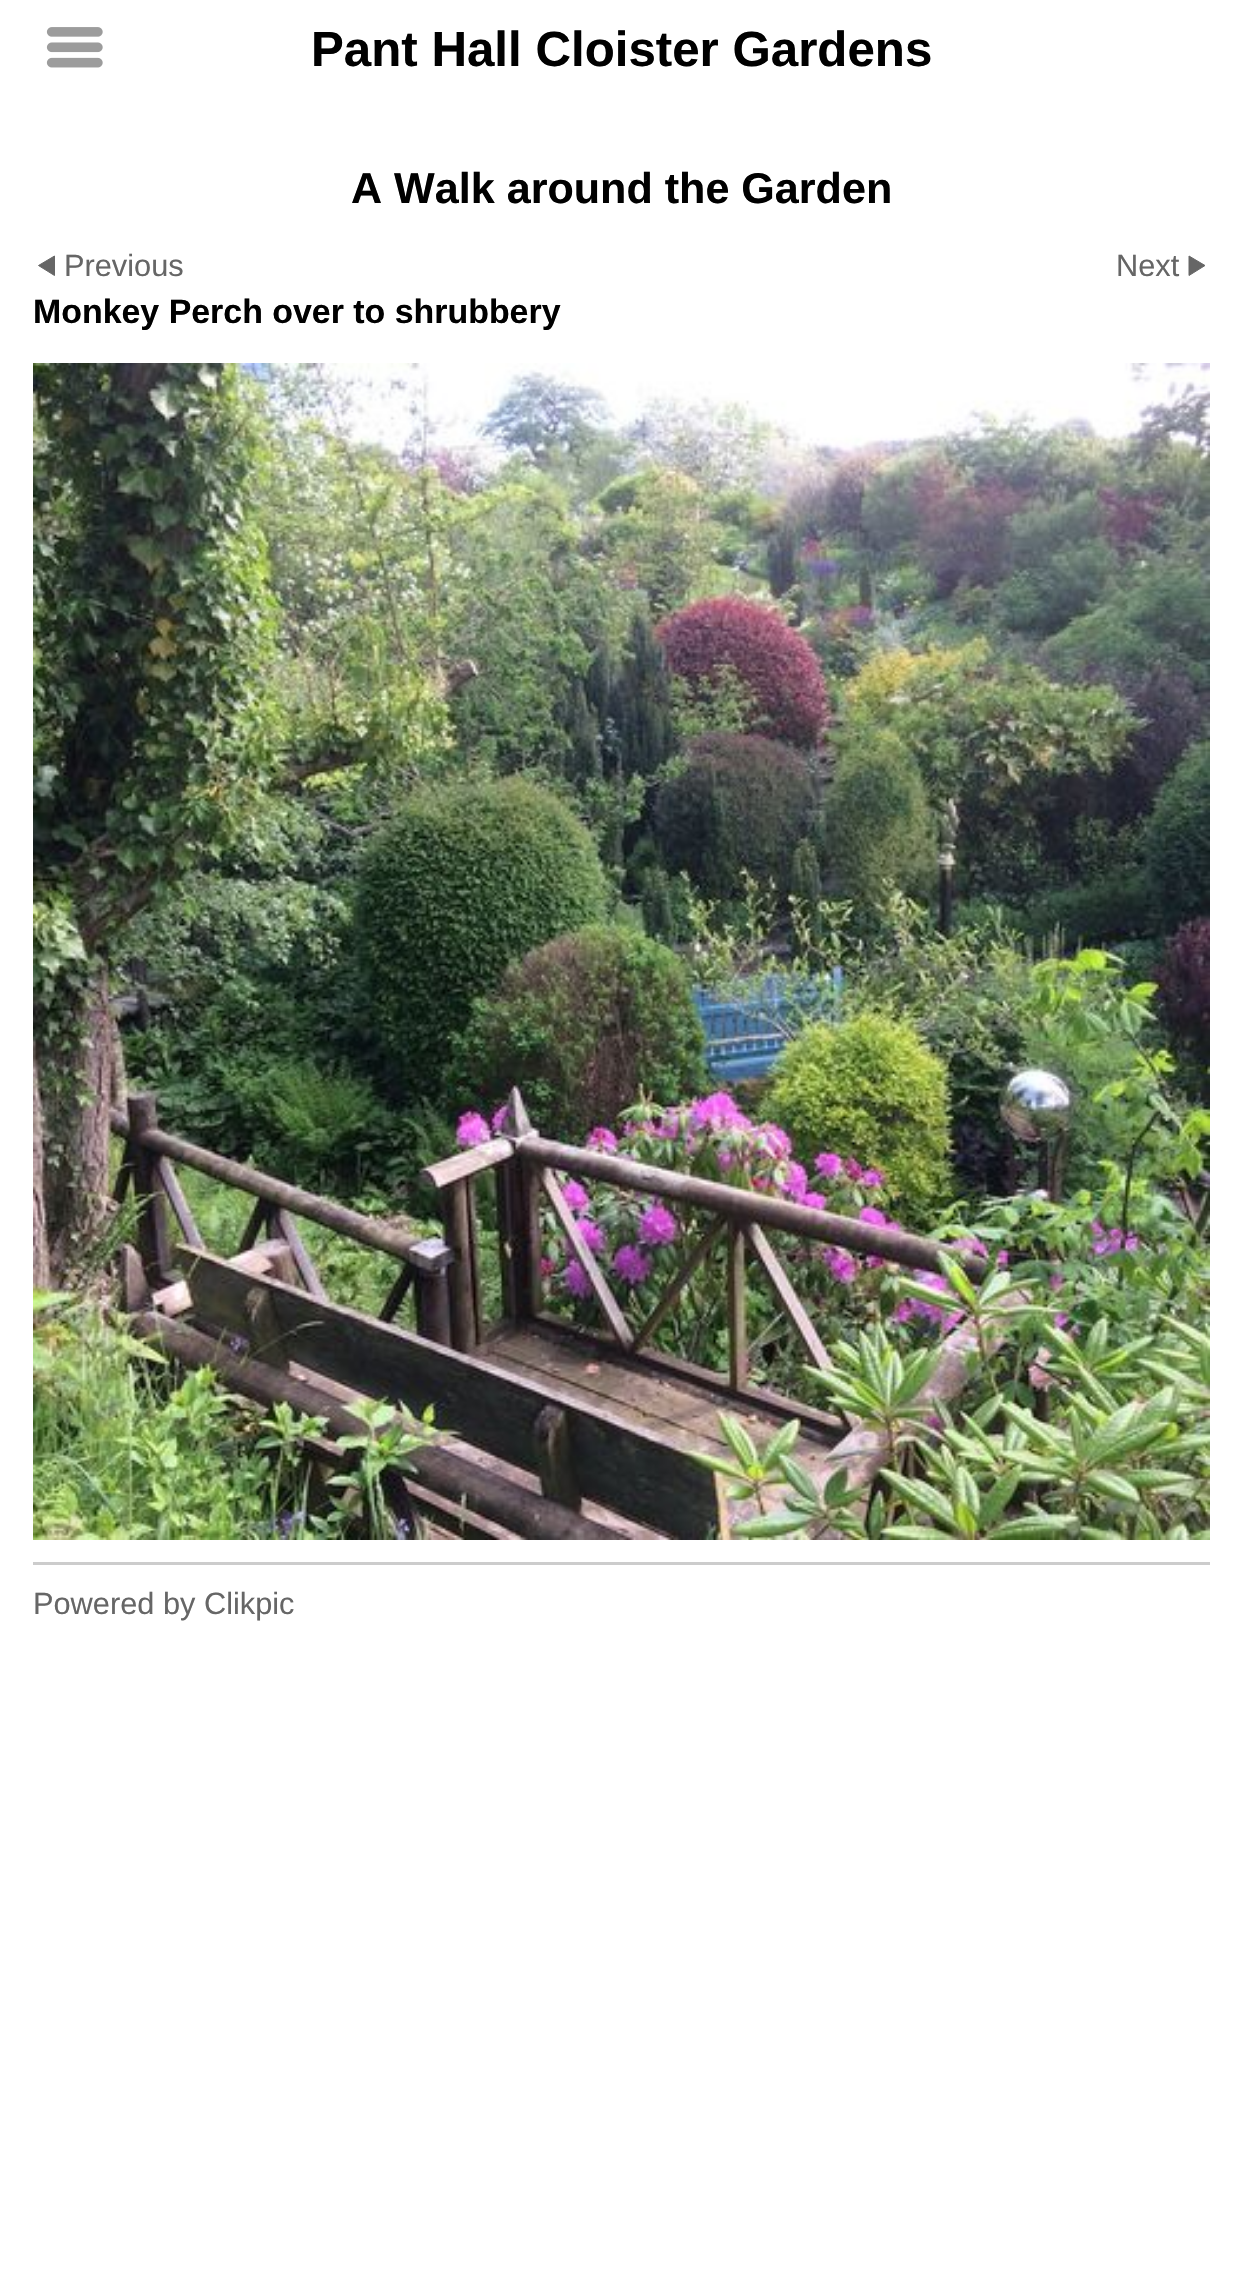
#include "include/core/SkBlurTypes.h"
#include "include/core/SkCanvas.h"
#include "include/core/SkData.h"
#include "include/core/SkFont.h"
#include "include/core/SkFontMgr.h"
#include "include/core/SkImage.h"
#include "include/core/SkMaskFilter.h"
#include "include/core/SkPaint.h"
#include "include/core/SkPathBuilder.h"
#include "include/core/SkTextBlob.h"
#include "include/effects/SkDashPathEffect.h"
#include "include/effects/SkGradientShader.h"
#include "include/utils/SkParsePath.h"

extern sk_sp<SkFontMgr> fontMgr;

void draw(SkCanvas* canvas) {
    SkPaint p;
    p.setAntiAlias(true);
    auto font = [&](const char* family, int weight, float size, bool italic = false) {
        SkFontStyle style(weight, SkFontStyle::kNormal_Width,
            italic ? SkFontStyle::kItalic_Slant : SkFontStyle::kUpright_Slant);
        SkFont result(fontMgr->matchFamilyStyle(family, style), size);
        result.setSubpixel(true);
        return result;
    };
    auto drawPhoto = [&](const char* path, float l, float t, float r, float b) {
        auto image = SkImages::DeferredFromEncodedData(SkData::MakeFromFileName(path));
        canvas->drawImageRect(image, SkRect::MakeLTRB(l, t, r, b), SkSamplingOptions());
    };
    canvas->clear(0xFFFFFFFF);
    drawPhoto("media/1.png", 46, 27, 103, 68);
    auto font1 = font("Liberation Sans", 700, 49.25f);
    p.setColor(0xFF000000);
    canvas->drawString("Pant Hall Cloister Gardens", 311, 66, font1, p);
    auto font2 = font("Liberation Sans", 700, 43.1f);
    canvas->drawString("A Walk around the Garden", 351, 203, font2, p);
    p.setColor(0xFF666666);
    canvas->drawPath(SkPathBuilder().moveTo(54.5f, 256).lineTo(54.5f, 275.5f).lineTo(38.5f, 265.5f).close().detach(), p);
    p.setStyle(SkPaint::kStroke_Style);
    p.setStrokeWidth(1);
    canvas->drawPath(SkPathBuilder().moveTo(54.5f, 256).lineTo(54.5f, 275.5f).lineTo(38.5f, 265.5f).close().detach(), p);
    auto font3 = font("Liberation Sans", 400, 30.75f);
    p.setStyle(SkPaint::kFill_Style);
    canvas->drawString("Previous", 64, 276, font3, p);
    canvas->drawString("Next", 1116, 276, font3, p);
    canvas->drawPath(SkPathBuilder().moveTo(1189, 256).lineTo(1189, 275.5f).lineTo(1205, 265.5f).close().detach(), p);
    p.setStyle(SkPaint::kStroke_Style);
    canvas->drawPath(SkPathBuilder().moveTo(1189, 256).lineTo(1189, 275.5f).lineTo(1205, 265.5f).close().detach(), p);
    auto font4 = font("Liberation Sans", 700, 33.9f);
    p.setStyle(SkPaint::kFill_Style);
    p.setColor(0xFF000000);
    canvas->drawString("Monkey Perch over to shrubbery", 33, 323, font4, p);
    drawPhoto("media/2.png", 33, 363, 1210, 1540);
    p.setColor(0xFFCCCCCC);
    canvas->drawRect(SkRect::MakeLTRB(33, 1562, 1210, 1565), p);
    p.setColor(0xFF666666);
    canvas->drawString("Powered by Clikpic", 33, 1614, font3, p);
}
